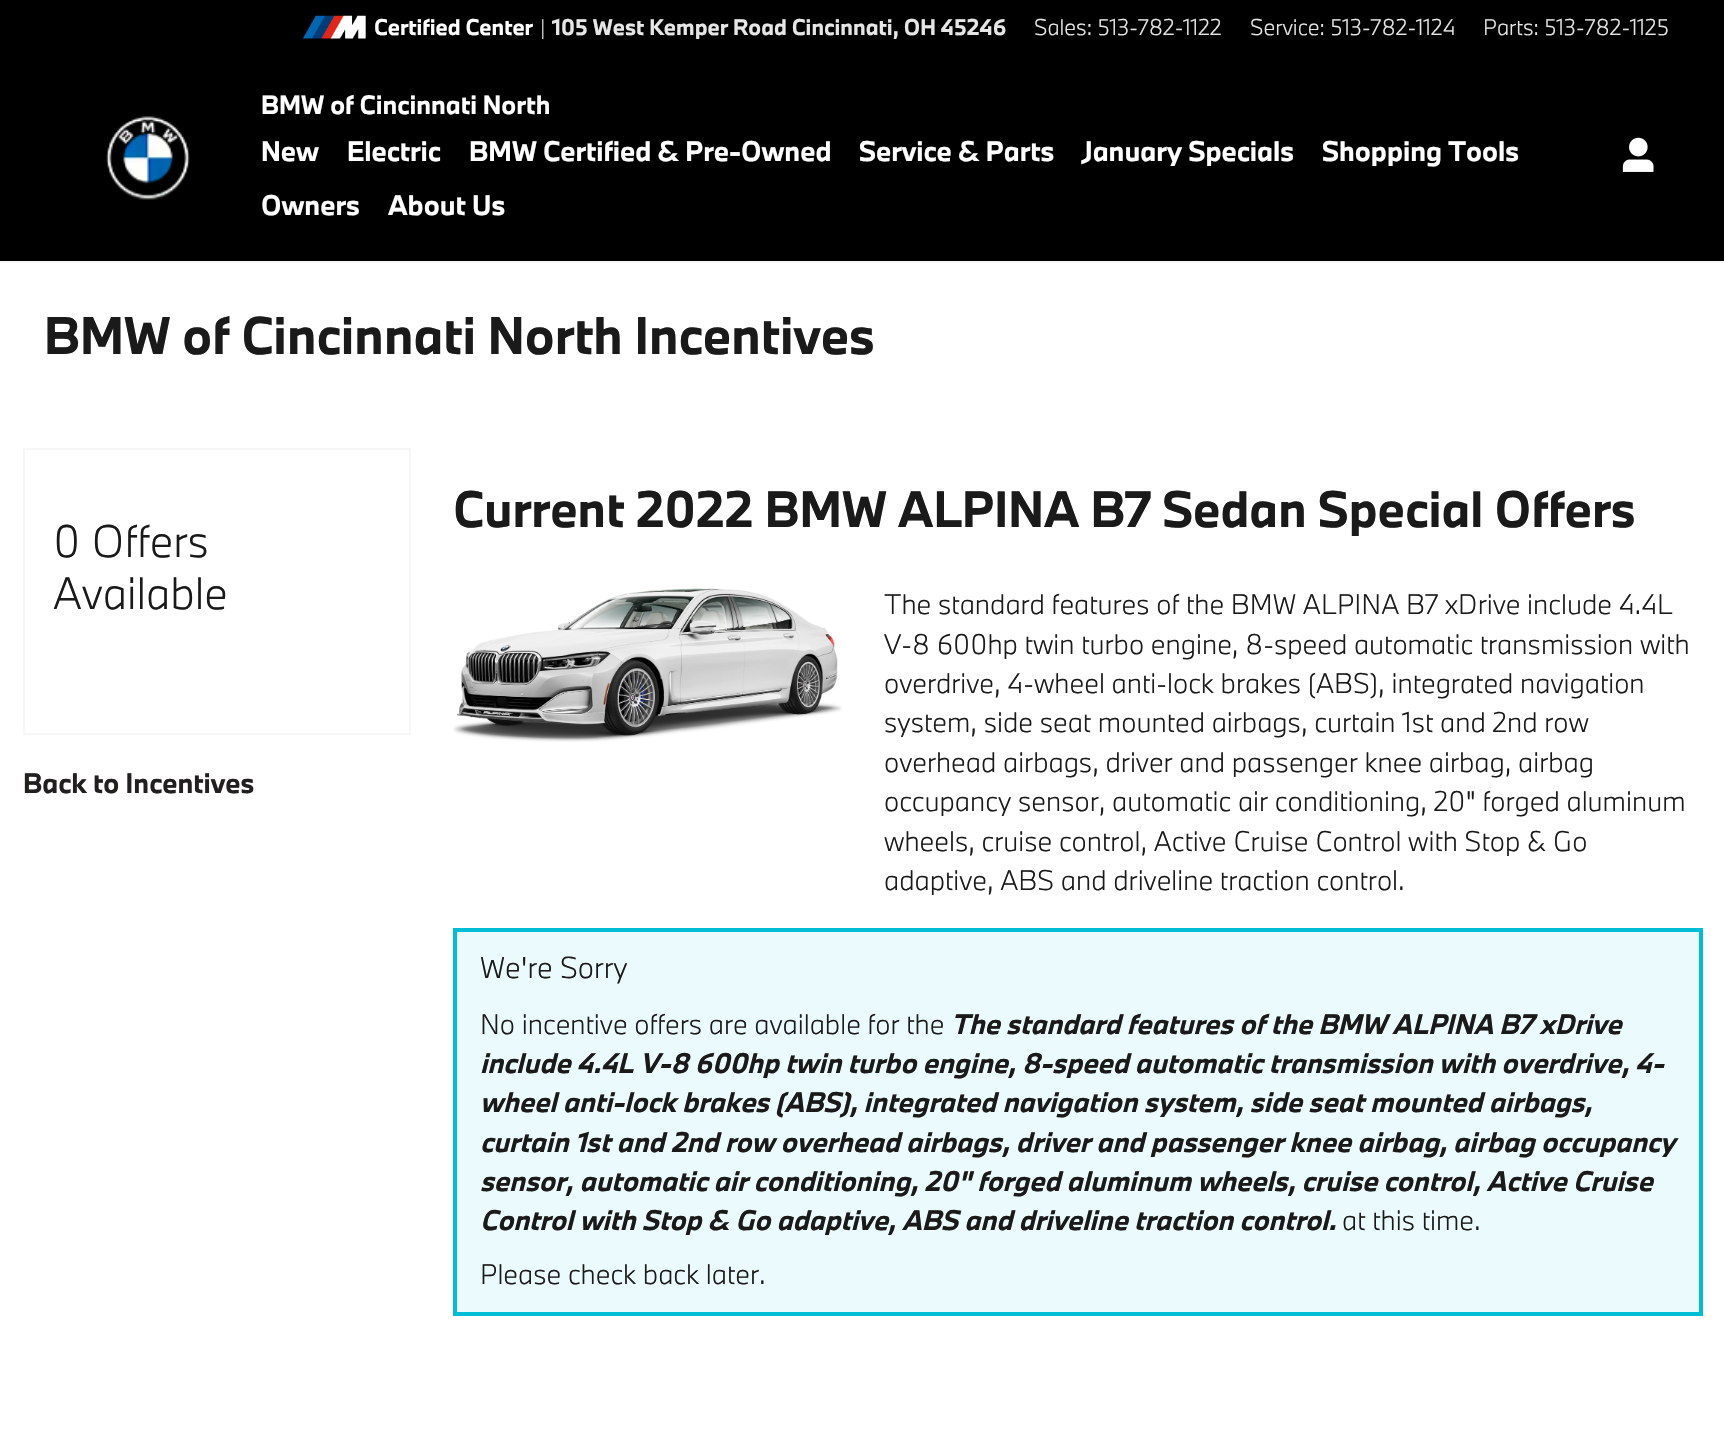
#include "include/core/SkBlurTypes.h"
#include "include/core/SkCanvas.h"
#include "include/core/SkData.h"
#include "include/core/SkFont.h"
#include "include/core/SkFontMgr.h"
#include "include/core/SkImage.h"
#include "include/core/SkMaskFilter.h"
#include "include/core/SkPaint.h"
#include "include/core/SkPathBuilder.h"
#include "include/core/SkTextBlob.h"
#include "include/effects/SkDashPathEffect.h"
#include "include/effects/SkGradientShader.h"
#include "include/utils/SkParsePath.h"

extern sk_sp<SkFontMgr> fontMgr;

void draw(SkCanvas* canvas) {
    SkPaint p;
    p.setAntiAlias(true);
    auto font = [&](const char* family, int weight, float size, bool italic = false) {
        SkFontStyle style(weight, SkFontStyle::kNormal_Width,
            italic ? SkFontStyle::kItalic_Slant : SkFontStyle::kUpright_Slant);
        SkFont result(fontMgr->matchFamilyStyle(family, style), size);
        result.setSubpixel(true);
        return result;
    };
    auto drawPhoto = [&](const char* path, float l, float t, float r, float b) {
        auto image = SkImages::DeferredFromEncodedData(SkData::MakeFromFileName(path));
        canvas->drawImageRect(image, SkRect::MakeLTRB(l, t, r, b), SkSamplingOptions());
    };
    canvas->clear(0xFFFFFFFF);
    p.setColor(0xFFF6F6F6);
    canvas->drawRect(SkRect::MakeLTRB(0, 261, 1724, 263), p);
    p.setColor(0xFF000000);
    canvas->drawRect(SkRect::MakeLTRB(0, 0, 1724, 261), p);
    drawPhoto("media/1.png", 302, 15, 366, 39);
    auto font1 = font("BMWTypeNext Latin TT", 700, 21);
    p.setColor(0xFFFFFFFF);
    canvas->drawString("Certified Center", 374, 35, font1, p);
    auto font2 = font("BMWTypeNext Latin TT", 300, 21);
    p.setColor(0xFFCACACA);
    canvas->drawString("|", 540, 35, font2, p);
    p.setColor(0xFFE6E6E6);
    canvas->drawString("105 West Kemper Road Cincinnati, OH 45246", 552, 35, font1, p);
    {
        const struct { const char* s; float x, y; } items[] = {
            {"Sales: 513-782-1122", 1034, 35},
            {"Service: 513-782-1124", 1250, 35},
            {"Parts: 513-782-1125", 1483, 35},
        };
        for (auto [s, x, y] : items) {
            canvas->drawString(s, x, y, font2, p);
        }
    }
    drawPhoto("media/2.png", 106, 116, 190, 200);
    auto font3 = font("BMWTypeNext Latin TT", 700, 24.5f);
    p.setColor(0xFFFFFFFF);
    canvas->drawString("BMW of Cincinnati North", 261, 114, font3, p);
    auto font4 = font("BMWTypeNext Latin TT", 700, 26.25f);
    {
        const struct { const char* s; float x, y; } items[] = {
            {"New", 261, 161},
            {"Electric", 347, 161},
            {"BMW Certified & Pre-Owned", 469, 161},
            {"Service & Parts", 859, 161},
            {"January Specials", 1082, 161},
            {"Shopping Tools", 1322, 161},
            {"Owners", 261, 215},
            {"About Us", 388, 215},
        };
        for (auto [s, x, y] : items) {
            canvas->drawString(s, x, y, font4, p);
        }
    }
    drawPhoto("media/3.png", 1622, 137, 1654, 172);
    auto font5 = font("BMWTypeNext Latin TT", 700, 49);
    p.setColor(0xFF1A1A1A);
    canvas->drawString("BMW of Cincinnati North Incentives", 44, 354, font5, p);
    p.setStyle(SkPaint::kStroke_Style);
    p.setStrokeWidth(2);
    p.setColor(0xFFF6F6F6);
    canvas->drawRect(SkRect::MakeLTRB(24, 449, 410, 734), p);
    auto font6 = font("BMWTypeNext Latin TT", 300, 42);
    p.setStyle(SkPaint::kFill_Style);
    p.setColor(0xFF1A1A1A);
    canvas->drawString("0 Offers", 53, 557, font6, p);
    canvas->drawString("Available", 53, 609, font6, p);
    p.setColor(0xFF221F1F);
    canvas->drawString("Back to Incentives", 23, 793, font4, p);
    auto font7 = font("BMWTypeNext Latin TT", 700, 47.25f);
    p.setColor(0xFF1A1A1A);
    canvas->drawString("Current 2022 BMW ALPINA B7 Sedan Special Offers", 453, 527, font7, p);
    drawPhoto("media/4.png", 453, 588, 842, 742);
    auto font8 = font("BMWTypeNext Latin TT", 300, 26.25f);
    {
        const struct { const char* s; float x, y; } items[] = {
            {"The standard features of the BMW ALPINA B7 xDrive include 4.4L", 884, 614},
            {"V-8 600hp twin turbo engine, 8-speed automatic transmission with", 884, 654},
            {"overdrive, 4-wheel anti-lock brakes (ABS), integrated navigation", 884, 693},
            {"system, side seat mounted airbags, curtain 1st and 2nd row", 884, 732},
            {"overhead airbags, driver and passenger knee airbag, airbag", 884, 772},
            {"occupancy sensor, automatic air conditioning, 20\" forged aluminum", 884, 811},
            {"wheels, cruise control, Active Cruise Control with Stop & Go", 884, 851},
            {"adaptive, ABS and driveline traction control.", 884, 890},
        };
        for (auto [s, x, y] : items) {
            canvas->drawString(s, x, y, font8, p);
        }
    }
    p.setColor(0xFFEBFAFC);
    canvas->drawRect(SkRect::MakeLTRB(455, 930, 1701, 1314), p);
    p.setStyle(SkPaint::kStroke_Style);
    p.setStrokeWidth(4);
    p.setColor(0xFF00BCD4);
    canvas->drawRect(SkRect::MakeLTRB(455, 930, 1701, 1314), p);
    auto font9 = font("BMWTypeNext Latin TT", 300, 28);
    p.setStyle(SkPaint::kFill_Style);
    p.setColor(0xFF1A1A1A);
    canvas->drawString("We're Sorry", 480, 978, font9, p);
    canvas->drawString("No incentive offers are available for the", 480, 1034, font8, p);
    auto font10 = font("BMWTypeNext Latin TT", 700, 26.25f, true);
    {
        const struct { const char* s; float x, y; } items[] = {
            {"The standard features of the BMW ALPINA B7 xDrive", 951, 1034},
            {"include 4.4L V-8 600hp twin turbo engine, 8-speed automatic transmission with overdrive, 4-", 480, 1073},
            {"wheel anti-lock brakes (ABS), integrated navigation system, side seat mounted airbags,", 480, 1112},
            {"curtain 1st and 2nd row overhead airbags, driver and passenger knee airbag, airbag occupancy", 480, 1152},
            {"sensor, automatic air conditioning, 20\" forged aluminum wheels, cruise control, Active Cruise", 480, 1191},
            {"Control with Stop & Go adaptive, ABS and driveline traction control.", 480, 1230},
        };
        for (auto [s, x, y] : items) {
            canvas->drawString(s, x, y, font10, p);
        }
    }
    canvas->drawString("at this time.", 1342, 1230, font8, p);
    canvas->drawString("Please check back later.", 480, 1284, font8, p);
}
